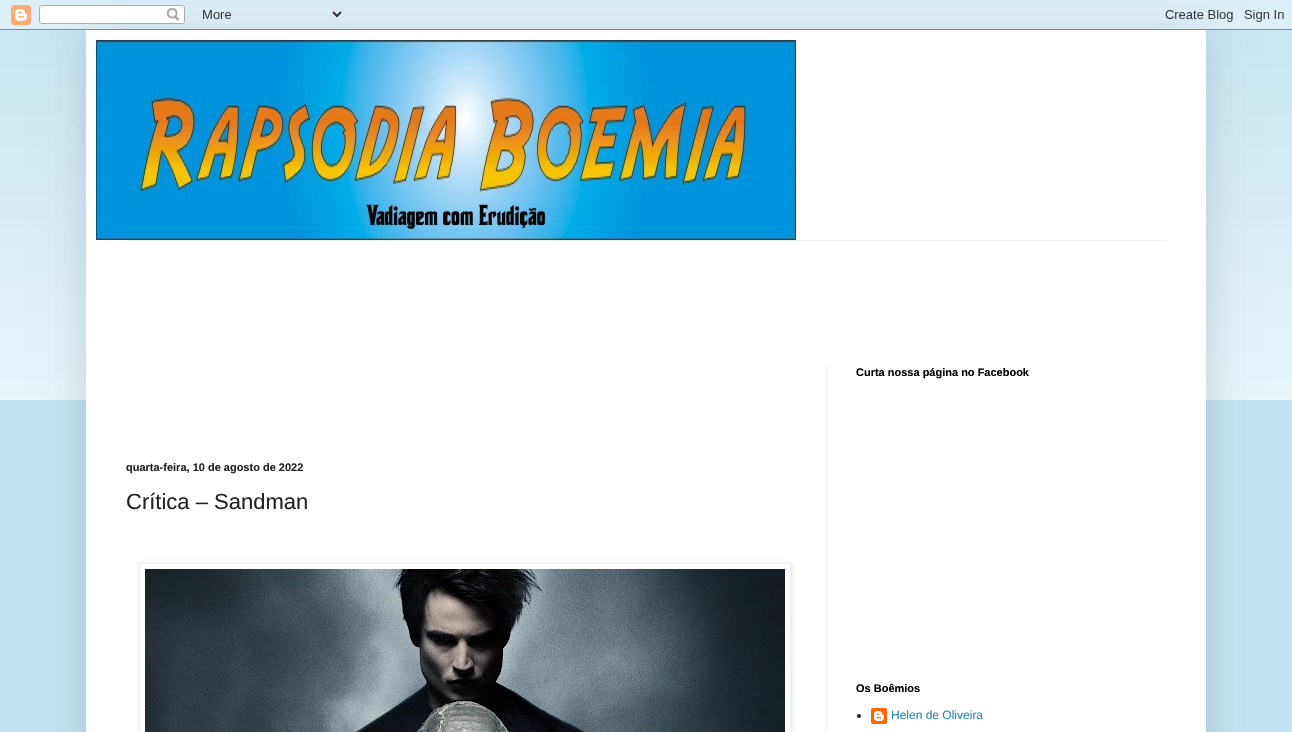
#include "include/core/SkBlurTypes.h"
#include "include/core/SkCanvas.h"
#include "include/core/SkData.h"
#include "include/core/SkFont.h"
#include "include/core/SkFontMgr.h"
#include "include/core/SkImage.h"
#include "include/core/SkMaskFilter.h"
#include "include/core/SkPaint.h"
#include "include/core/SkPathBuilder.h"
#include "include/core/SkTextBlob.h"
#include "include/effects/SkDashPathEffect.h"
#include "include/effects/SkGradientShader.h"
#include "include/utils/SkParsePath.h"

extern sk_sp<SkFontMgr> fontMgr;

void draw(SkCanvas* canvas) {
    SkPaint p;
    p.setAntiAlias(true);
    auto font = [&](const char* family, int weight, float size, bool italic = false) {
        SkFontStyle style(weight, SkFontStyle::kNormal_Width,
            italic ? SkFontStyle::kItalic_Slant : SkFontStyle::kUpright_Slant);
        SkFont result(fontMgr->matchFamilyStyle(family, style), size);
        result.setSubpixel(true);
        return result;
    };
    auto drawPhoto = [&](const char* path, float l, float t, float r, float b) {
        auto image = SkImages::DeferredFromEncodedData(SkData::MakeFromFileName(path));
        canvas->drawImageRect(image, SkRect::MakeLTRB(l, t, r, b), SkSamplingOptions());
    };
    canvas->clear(0xFFC2E4F2);
    drawPhoto("media/2.png", 0, 10, 1292, 400);
    p.setColor(0x26000000);
    p.setMaskFilter(SkMaskFilter::MakeBlur(kNormal_SkBlurStyle, 20));
    canvas->drawRect(SkRect::MakeLTRB(86, 30, 1206, 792), p);
    p.setMaskFilter(nullptr);
    drawPhoto("media/1.png", 0, 0, 1292, 30);
    p.setColor(0xFFFFFFFF);
    canvas->drawRect(SkRect::MakeLTRB(86, 30, 1206, 732), p);
    drawPhoto("media/3.png", 96, 40, 796, 240);
    p.setColor(0xFFEEEEEE);
    canvas->drawRect(SkRect::MakeLTRB(126, 240, 1166, 241), p);
    canvas->drawRect(SkRect::MakeLTRB(826, 366, 827, 732), p);
    auto font1 = font("Liberation Sans", 700, 11);
    p.setColor(0xFF222222);
    canvas->drawString("quarta-feira, 10 de agosto de 2022", 126, 471, font1, p);
    auto font2 = font("Liberation Sans", 400, 22);
    canvas->drawString("Crítica – Sandman", 126, 509, font2, p);
    canvas->save();
    canvas->clipPath(SkPathBuilder(SkPathFillType::kEvenOdd).moveTo(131, 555).lineTo(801, 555).lineTo(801, 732).lineTo(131, 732).close().moveTo(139, 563).lineTo(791, 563).lineTo(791, 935).lineTo(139, 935).close().detach(), true);
    p.setColor(0x1A000000);
    p.setMaskFilter(SkMaskFilter::MakeBlur(kNormal_SkBlurStyle, 2.5f));
    canvas->drawRect(SkRect::MakeLTRB(140, 564, 792, 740), p);
    p.setMaskFilter(nullptr);
    canvas->restore();
    p.setStyle(SkPaint::kStroke_Style);
    p.setStrokeWidth(1);
    p.setColor(0xFFEEEEEE);
    canvas->drawRect(SkRect::MakeLTRB(139.5f, 563.5f, 790.5f, 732.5f), p);
    drawPhoto("media/4.png", 145, 569, 785, 732);
    p.setStyle(SkPaint::kFill_Style);
    p.setColor(0xFF000000);
    canvas->drawString("Curta nossa página no Facebook", 856, 376, font1, p);
    canvas->drawString("Os Boêmios", 856, 692, font1, p);
    p.setColor(0xFF222222);
    canvas->drawCircle(859, 716, 2, p);
    drawPhoto("media/5.png", 871, 708, 887, 724);
    auto font3 = font("Liberation Sans", 400, 12);
    p.setColor(0xFF2288BB);
    canvas->drawString("Helen de Oliveira", 891, 719, font3, p);
}
